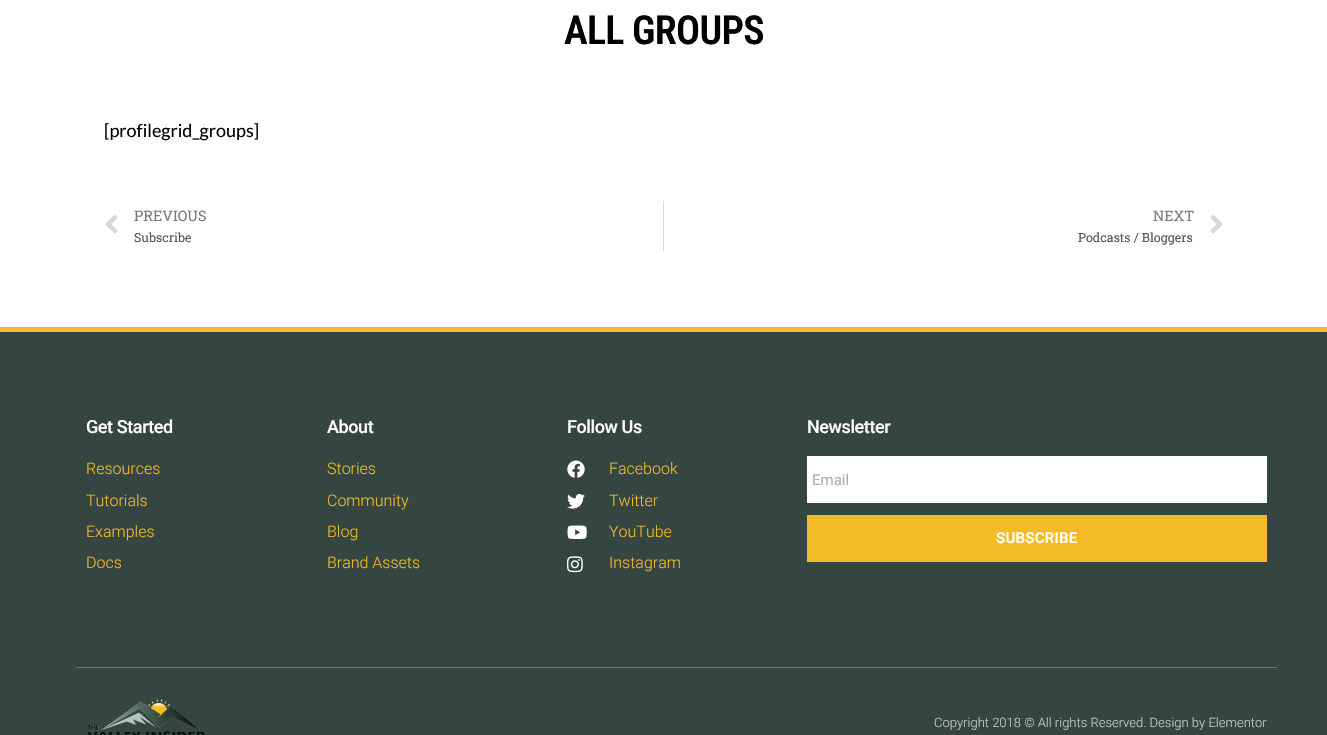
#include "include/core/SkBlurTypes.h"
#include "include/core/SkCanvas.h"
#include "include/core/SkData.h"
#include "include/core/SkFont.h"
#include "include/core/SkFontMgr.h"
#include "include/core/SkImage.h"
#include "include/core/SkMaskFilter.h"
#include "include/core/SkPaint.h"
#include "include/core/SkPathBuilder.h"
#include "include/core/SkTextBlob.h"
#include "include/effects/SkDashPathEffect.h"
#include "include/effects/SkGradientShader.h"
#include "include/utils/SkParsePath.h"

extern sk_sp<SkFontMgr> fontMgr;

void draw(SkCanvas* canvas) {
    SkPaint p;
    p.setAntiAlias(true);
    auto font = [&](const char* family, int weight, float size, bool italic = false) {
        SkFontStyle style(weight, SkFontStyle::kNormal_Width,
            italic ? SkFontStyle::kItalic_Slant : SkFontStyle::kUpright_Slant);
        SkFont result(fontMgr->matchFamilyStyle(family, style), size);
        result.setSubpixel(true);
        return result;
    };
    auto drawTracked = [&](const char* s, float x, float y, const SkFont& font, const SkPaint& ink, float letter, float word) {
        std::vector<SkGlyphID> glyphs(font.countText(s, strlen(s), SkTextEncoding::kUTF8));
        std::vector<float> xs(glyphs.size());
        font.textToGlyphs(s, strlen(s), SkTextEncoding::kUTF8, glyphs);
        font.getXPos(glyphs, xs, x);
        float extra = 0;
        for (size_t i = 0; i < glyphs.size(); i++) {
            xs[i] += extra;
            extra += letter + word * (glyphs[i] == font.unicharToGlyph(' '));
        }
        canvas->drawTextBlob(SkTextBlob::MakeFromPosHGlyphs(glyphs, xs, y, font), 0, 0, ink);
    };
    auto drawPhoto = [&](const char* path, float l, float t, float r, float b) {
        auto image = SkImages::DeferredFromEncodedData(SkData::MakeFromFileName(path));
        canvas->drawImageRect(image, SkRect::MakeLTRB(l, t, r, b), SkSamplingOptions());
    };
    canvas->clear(0xFFFFFFFF);
    auto font1 = font("Roboto Condensed", 600, 40);
    p.setColor(0xFF000000);
    drawTracked("ALL GROUPS", 564, 44, font1, p, -0.75f, 0);
    auto font2 = font("Lato", 400, 18);
    canvas->drawString("[profilegrid_groups]", 104, 137, font2, p);
    drawPhoto("media/1.png", 105, 215, 118, 234);
    auto font3 = font("Roboto Slab", 400, 14.5f);
    p.setColor(0xFF7A7A7A);
    canvas->drawString("PREVIOUS", 134, 221, font3, p);
    auto font4 = font("Roboto Slab", 400, 12.5f);
    p.setColor(0xFF54595F);
    canvas->drawString("Subscribe", 134, 242, font4, p);
    p.setColor(0xFFD5D8DC);
    canvas->drawRect(SkRect::MakeLTRB(663, 201, 664, 251), p);
    p.setColor(0xFF7A7A7A);
    canvas->drawString("NEXT", 1153, 221, font3, p);
    p.setColor(0xFF54595F);
    canvas->drawString("Podcasts / Bloggers", 1078, 242, font4, p);
    drawPhoto("media/2.png", 1210, 215, 1223, 234);
    p.setColor(0xFF354541);
    canvas->drawRect(SkRect::MakeLTRB(0, 332, 1327, 735), p);
    p.setColor(0xFFF3BB26);
    canvas->drawRect(SkRect::MakeLTRB(0, 327, 1327, 332), p);
    auto font5 = font("Roboto", 500, 18);
    p.setColor(0xFFFFFFFF);
    drawTracked("Get Started", 86, 433, font5, p, -0.4f, 0);
    auto font6 = font("Roboto", 300, 16);
    p.setColor(0xFFF3BB26);
    {
        const struct { const char* s; float x, y; } items[] = {
            {"Resources", 86, 474},
            {"Tutorials", 86, 506},
            {"Examples", 86, 537},
            {"Docs", 86, 568},
        };
        for (auto [s, x, y] : items) {
            canvas->drawString(s, x, y, font6, p);
        }
    }
    p.setColor(0xFFFFFFFF);
    drawTracked("About", 327, 433, font5, p, -0.4f, 0);
    p.setColor(0xFFF3BB26);
    {
        const struct { const char* s; float x, y; } items[] = {
            {"Stories", 327, 474},
            {"Community", 327, 506},
            {"Blog", 327, 537},
            {"Brand Assets", 327, 568},
        };
        for (auto [s, x, y] : items) {
            canvas->drawString(s, x, y, font6, p);
        }
    }
    p.setColor(0xFFFFFFFF);
    drawTracked("Follow Us", 567, 433, font5, p, -0.4f, 0);
    drawPhoto("media/3.png", 567, 460, 585, 478);
    p.setColor(0xFFF3BB26);
    canvas->drawString("Facebook", 609, 474, font6, p);
    drawPhoto("media/4.png", 567, 493, 585, 509);
    canvas->drawString("Twitter", 609, 506, font6, p);
    drawPhoto("media/5.png", 567, 525, 587, 539);
    canvas->drawString("YouTube", 609, 537, font6, p);
    drawPhoto("media/6.png", 567, 556, 583, 573);
    canvas->drawString("Instagram", 609, 568, font6, p);
    p.setColor(0xFFFFFFFF);
    drawTracked("Newsletter", 807, 433, font5, p, -0.4f, 0);
    canvas->drawRect(SkRect::MakeLTRB(807, 456, 1267, 503), p);
    auto font7 = font("Roboto", 400, 15);
    p.setColor(0xFFAFAFAF);
    canvas->drawString("Email", 812, 485, font7, p);
    p.setColor(0xFFF3BB26);
    canvas->drawRect(SkRect::MakeLTRB(807, 515, 1267, 562), p);
    auto font8 = font("Roboto", 600, 15);
    p.setColor(0xFFFFFFFF);
    drawTracked("SUBSCRIBE", 996, 543, font8, p, 0.25f, 0);
    p.setColor(0xFF687471);
    canvas->drawRect(SkRect::MakeLTRB(76, 667, 1277, 668), p);
    drawPhoto("media/7.png", 87, 699, 205, 735);
    auto font9 = font("Roboto", 300, 13);
    p.setColor(0xFFC6CBCA);
    canvas->drawString("Copyright 2018 © All rights Reserved. Design by Elementor", 934, 727, font9, p);
}
